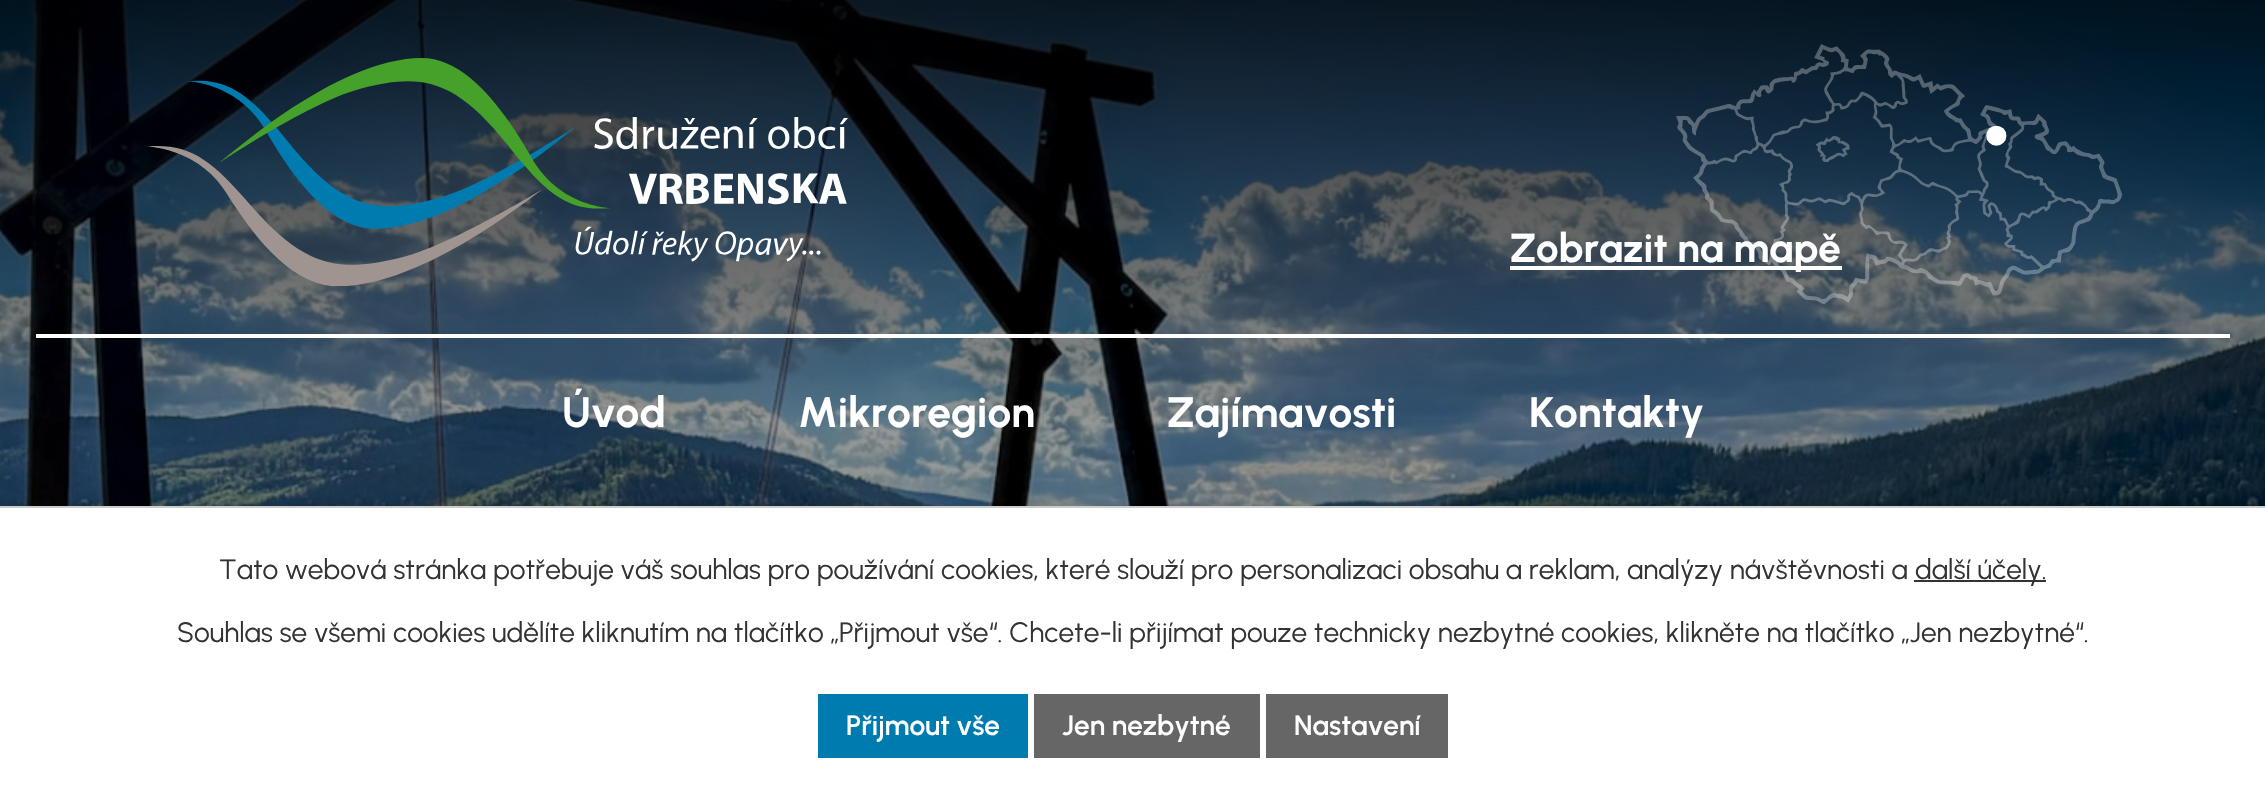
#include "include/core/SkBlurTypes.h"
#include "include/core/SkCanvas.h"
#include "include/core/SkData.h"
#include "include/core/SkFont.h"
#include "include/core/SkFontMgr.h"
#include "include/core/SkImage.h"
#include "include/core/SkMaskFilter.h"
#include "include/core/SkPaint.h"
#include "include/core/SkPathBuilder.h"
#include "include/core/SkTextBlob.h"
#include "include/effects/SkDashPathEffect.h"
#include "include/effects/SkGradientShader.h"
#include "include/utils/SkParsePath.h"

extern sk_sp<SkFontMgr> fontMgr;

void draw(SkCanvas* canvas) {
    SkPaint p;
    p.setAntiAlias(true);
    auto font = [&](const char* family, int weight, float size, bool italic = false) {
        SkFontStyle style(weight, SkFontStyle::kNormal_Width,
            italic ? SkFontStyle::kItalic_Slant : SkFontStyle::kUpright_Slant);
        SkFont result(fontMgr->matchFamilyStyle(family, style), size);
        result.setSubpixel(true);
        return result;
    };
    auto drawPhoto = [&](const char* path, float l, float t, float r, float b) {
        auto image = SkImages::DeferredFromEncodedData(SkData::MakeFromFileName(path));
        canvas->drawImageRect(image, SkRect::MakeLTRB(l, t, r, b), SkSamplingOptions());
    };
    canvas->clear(0xFF000000);
    drawPhoto("media/1.png", 0, 0, 2265, 506);
    {
        const SkColor colors[] = {0xD9000000, 0x00000000};
        const float stops[] = {0, 1};
        const SkPoint ends[] = {{1133, -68}, {1133, 430}};
        p.setShader(SkGradientShader::MakeLinear(ends, colors, stops, 2, SkTileMode::kClamp));
        p.setAlpha(255);
    }
    canvas->drawRect(SkRect::MakeLTRB(0, 0, 2265, 417), p);
    drawPhoto("media/2.png", 146, 58, 848, 286);
    drawPhoto("media/3.png", 1676, 44, 2122, 304);
    p.setShader(nullptr);
    p.setColor(0xFFFFFFFF);
    canvas->drawRect(SkRect::MakeLTRB(1510, 266, 1842, 270), p);
    auto font1 = font("Urbanist", 700, 40.25f);
    canvas->drawString("Zobrazit na mapě", 1510, 262, font1, p);
    canvas->drawRect(SkRect::MakeLTRB(36, 334, 2230, 338), p);
    auto font2 = font("Urbanist", 700, 42.5f);
    {
        const struct { const char* s; float x, y; } items[] = {
            {"Úvod", 562, 427},
            {"Mikroregion", 798, 427},
            {"Zajímavosti", 1167, 427},
            {"Kontakty", 1529, 427},
        };
        for (auto [s, x, y] : items) {
            canvas->drawString(s, x, y, font2, p);
        }
    }
    p.setColor(0x33000000);
    p.setMaskFilter(SkMaskFilter::MakeBlur(kNormal_SkBlurStyle, 5));
    canvas->drawRect(SkRect::MakeLTRB(0, 506, 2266, 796), p);
    p.setMaskFilter(nullptr);
    p.setColor(0xFFFFFFFF);
    canvas->drawRect(SkRect::MakeLTRB(0, 508, 2265, 795), p);
    p.setColor(0xFFCCCCCC);
    canvas->drawRect(SkRect::MakeLTRB(0, 506, 2265, 508), p);
    auto font3 = font("Urbanist", 400, 28);
    p.setColor(0xFF333333);
    canvas->drawString("Tato webová stránka potřebuje váš souhlas pro používání cookies, které slouží pro personalizaci obsahu a reklam, analýzy návštěvnosti a", 219, 579, font3, p);
    canvas->drawRect(SkRect::MakeLTRB(1914, 580, 2046, 582), p);
    canvas->drawString("další účely.", 1915, 579, font3, p);
    canvas->drawString("Souhlas se všemi cookies udělíte kliknutím na tlačítko „Přijmout vše“. Chcete-li přijímat pouze technicky nezbytné cookies, klikněte na tlačítko „Jen nezbytné“.", 177, 642, font3, p);
    p.setColor(0xFF007BAF);
    canvas->drawRect(SkRect::MakeLTRB(818, 694, 1028, 758), p);
    auto font4 = font("Urbanist", 600, 28);
    p.setColor(0xFFFFFFFF);
    canvas->drawString("Přijmout vše", 846, 735, font4, p);
    p.setColor(0xFF666666);
    canvas->drawRect(SkRect::MakeLTRB(1034, 694, 1260, 758), p);
    p.setColor(0xFFFFFFFF);
    canvas->drawString("Jen nezbytné", 1062, 735, font4, p);
    p.setColor(0xFF666666);
    canvas->drawRect(SkRect::MakeLTRB(1266, 694, 1448, 758), p);
    p.setColor(0xFFFFFFFF);
    canvas->drawString("Nastavení", 1294, 735, font4, p);
}
